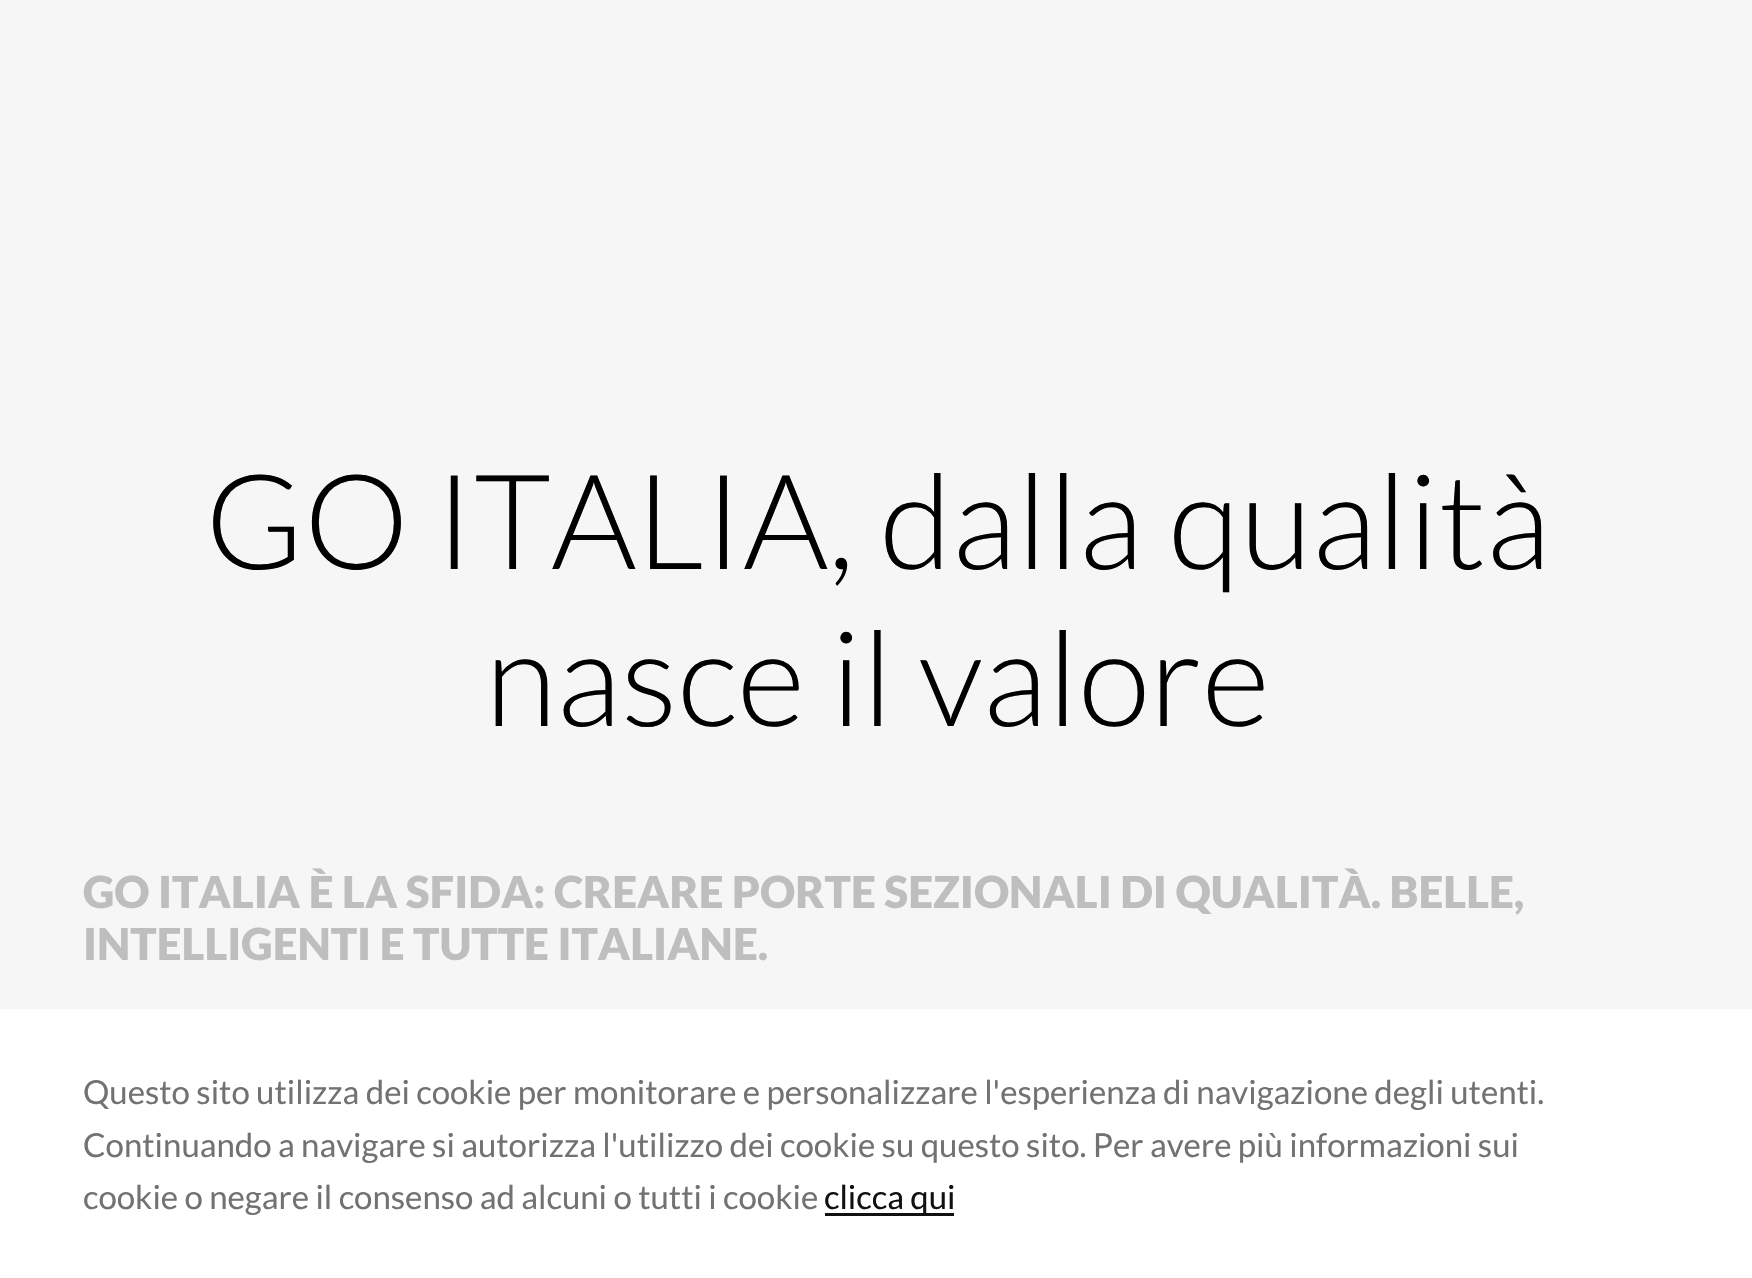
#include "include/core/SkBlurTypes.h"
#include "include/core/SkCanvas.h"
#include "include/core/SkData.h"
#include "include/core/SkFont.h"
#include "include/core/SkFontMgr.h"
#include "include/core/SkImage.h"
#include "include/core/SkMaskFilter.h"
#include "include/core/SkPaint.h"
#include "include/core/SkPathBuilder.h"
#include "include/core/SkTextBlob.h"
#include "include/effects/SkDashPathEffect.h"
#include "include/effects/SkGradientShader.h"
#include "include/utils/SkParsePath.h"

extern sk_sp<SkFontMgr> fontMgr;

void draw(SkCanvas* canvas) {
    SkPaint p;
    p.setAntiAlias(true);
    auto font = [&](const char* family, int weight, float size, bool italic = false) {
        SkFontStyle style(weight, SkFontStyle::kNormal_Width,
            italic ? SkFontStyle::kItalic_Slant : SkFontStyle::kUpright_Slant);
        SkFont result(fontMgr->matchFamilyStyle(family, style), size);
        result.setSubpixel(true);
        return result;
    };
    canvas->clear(0xFFF6F6F6);
    auto font1 = font("Lato", 300, 132);
    p.setColor(0xFF000000);
    canvas->drawString("GO ITALIA, dalla qualità", 205, 569, font1, p);
    canvas->drawString("nasce il valore", 485, 726, font1, p);
    auto font2 = font("Lato", 900, 44);
    p.setColor(0xFFBEBEBE);
    canvas->drawString("GO ITALIA È LA SFIDA: CREARE PORTE SEZIONALI DI QUALITÀ. BELLE,", 83, 908, font2, p);
    canvas->drawString("INTELLIGENTI E TUTTE ITALIANE.", 83, 960, font2, p);
    p.setColor(0xFFFFFFFF);
    canvas->drawRect(SkRect::MakeLTRB(0, 1009, 1752, 1278), p);
    auto font3 = font("Lato", 400, 33);
    p.setColor(0xFF727272);
    {
        const struct { const char* s; float x, y; } items[] = {
            {"Questo sito utilizza dei cookie per monitorare e personalizzare l'esperienza di navigazione degli utenti.", 83, 1104},
            {"Continuando a navigare si autorizza l'utilizzo dei cookie su questo sito. Per avere più informazioni sui", 83, 1157},
            {"cookie o negare il consenso ad alcuni o tutti i cookie", 83, 1209},
        };
        for (auto [s, x, y] : items) {
            canvas->drawString(s, x, y, font3, p);
        }
    }
    p.setColor(0xFF111111);
    canvas->drawRect(SkRect::MakeLTRB(825, 1213, 954, 1216), p);
    canvas->drawString("clicca qui", 824, 1209, font3, p);
}
